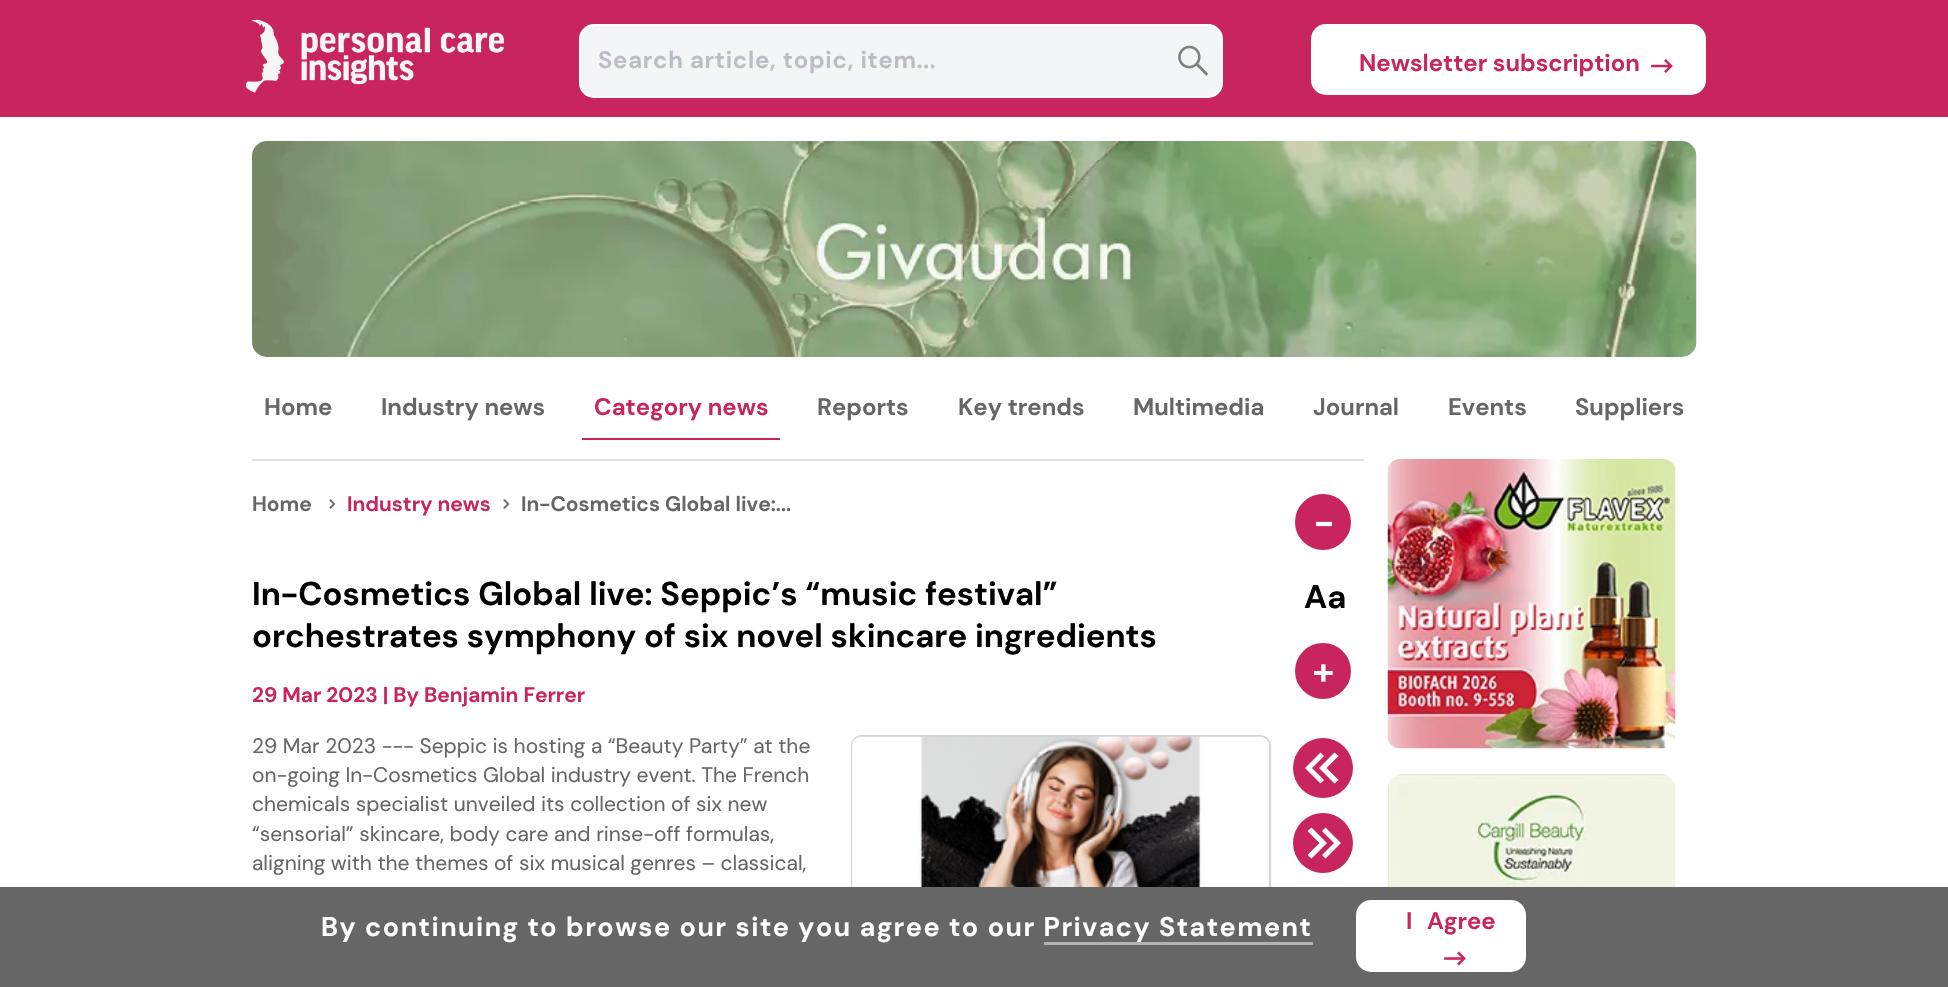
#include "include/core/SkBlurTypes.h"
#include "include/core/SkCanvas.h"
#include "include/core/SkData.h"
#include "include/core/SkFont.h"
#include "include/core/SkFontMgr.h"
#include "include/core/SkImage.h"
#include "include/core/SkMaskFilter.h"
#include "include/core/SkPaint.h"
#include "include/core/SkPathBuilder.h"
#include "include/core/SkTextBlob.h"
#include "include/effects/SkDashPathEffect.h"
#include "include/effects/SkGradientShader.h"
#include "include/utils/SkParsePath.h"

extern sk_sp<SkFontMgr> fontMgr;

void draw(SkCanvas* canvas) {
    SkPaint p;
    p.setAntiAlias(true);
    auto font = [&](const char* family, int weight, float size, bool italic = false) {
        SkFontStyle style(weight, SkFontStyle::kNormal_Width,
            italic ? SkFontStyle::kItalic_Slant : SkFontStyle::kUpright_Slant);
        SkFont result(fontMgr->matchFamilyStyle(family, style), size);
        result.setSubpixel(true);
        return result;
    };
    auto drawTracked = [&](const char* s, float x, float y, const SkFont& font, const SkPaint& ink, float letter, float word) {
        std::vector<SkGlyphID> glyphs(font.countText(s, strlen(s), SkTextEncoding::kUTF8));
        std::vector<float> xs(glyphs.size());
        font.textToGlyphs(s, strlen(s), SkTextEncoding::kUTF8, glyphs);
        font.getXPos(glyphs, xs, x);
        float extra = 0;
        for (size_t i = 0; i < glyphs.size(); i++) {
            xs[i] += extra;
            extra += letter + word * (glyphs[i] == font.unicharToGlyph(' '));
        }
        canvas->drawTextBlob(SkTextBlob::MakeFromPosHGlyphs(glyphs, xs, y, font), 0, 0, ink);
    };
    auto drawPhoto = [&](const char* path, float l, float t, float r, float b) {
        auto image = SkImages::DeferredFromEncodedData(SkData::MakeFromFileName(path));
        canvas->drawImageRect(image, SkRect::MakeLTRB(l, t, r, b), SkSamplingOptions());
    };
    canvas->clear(0xFFFFFFFF);
    p.setColor(0xFFC8255F);
    canvas->drawRect(SkRect::MakeLTRB(0, 0, 1948, 117), p);
    drawPhoto("media/1.png", 245, 19, 504, 93);
    p.setColor(0xFFF4F5F7);
    canvas->drawRoundRect(SkRect::MakeLTRB(580, 25, 1222, 97), 14, 14, p);
    p.setStyle(SkPaint::kStroke_Style);
    p.setStrokeWidth(2);
    p.setColor(0xFFFFFFFF);
    canvas->drawRoundRect(SkRect::MakeLTRB(580, 25, 1222, 97), 14, 14, p);
    auto font1 = font("DM Sans", 700, 24);
    p.setStyle(SkPaint::kFill_Style);
    p.setColor(0xFFBABCC6);
    drawTracked("Search article, topic, item...", 598, 68, font1, p, 0.75f, 0);
    p.setColor(0xFFF4F5F7);
    canvas->drawRect(SkRect::MakeLTRB(1220, 85, 1221, 86), p);
    drawPhoto("media/2.png", 1178, 45, 1209, 76);
    p.setColor(0xFFFFFFFF);
    canvas->drawRoundRect(SkRect::MakeLTRB(1311, 24, 1706, 95), 15, 15, p);
    p.setColor(0xFFC8255F);
    canvas->drawString("Newsletter subscription", 1359, 71, font1, p);
    drawPhoto("media/3.png", 1651, 59, 1673, 73);
    drawPhoto("media/4.png", 252, 141, 1697, 357);
    p.setColor(0xFF666666);
    canvas->drawString("Home", 264, 415, font1, p);
    canvas->drawString("Industry news", 381, 415, font1, p);
    p.setColor(0xFFC8255F);
    canvas->drawRect(SkRect::MakeLTRB(582, 438, 780, 440), p);
    canvas->drawString("Category news", 594, 415, font1, p);
    p.setColor(0xFF666666);
    {
        const struct { const char* s; float x, y; } items[] = {
            {"Reports", 817, 415},
            {"Key trends", 958, 415},
            {"Multimedia", 1133, 415},
            {"Journal", 1313, 415},
            {"Events", 1448, 415},
            {"Suppliers", 1575, 415},
        };
        for (auto [s, x, y] : items) {
            canvas->drawString(s, x, y, font1, p);
        }
    }
    p.setColor(0xFFE4E4E4);
    canvas->drawRect(SkRect::MakeLTRB(252, 459, 1364, 461), p);
    auto font2 = font("DM Sans", 700, 21);
    p.setColor(0xFF666666);
    canvas->drawString("Home", 252, 511, font2, p);
    drawPhoto("media/5.png", 329, 499, 336, 509);
    p.setColor(0xFFC8255F);
    canvas->drawString("Industry news", 347, 511, font2, p);
    drawPhoto("media/5.png", 503, 499, 510, 509);
    p.setColor(0xFF666666);
    canvas->drawString("In-Cosmetics Global live:...", 521, 511, font2, p);
    auto font3 = font("DM Sans", 700, 33);
    p.setColor(0xFF000000);
    canvas->drawString("In-Cosmetics Global live: Seppic’s “music festival”", 252, 605, font3, p);
    canvas->drawString("orchestrates symphony of six novel skincare ingredients", 252, 647, font3, p);
    p.setColor(0xFFC8255F);
    canvas->drawString("29 Mar 2023 | By Benjamin Ferrer", 252, 702, font2, p);
    auto font4 = font("DM Sans", 400, 21);
    p.setColor(0xFF666666);
    {
        const struct { const char* s; float x, y; } items[] = {
            {"29 Mar 2023 --- Seppic is hosting a “Beauty Party” at the", 252, 753},
            {"on-going In-Cosmetics Global industry event. The French", 252, 782},
            {"chemicals specialist unveiled its collection of six new", 252, 811},
            {"“sensorial” skincare, body care and rinse-off formulas,", 252, 841},
            {"aligning with the themes of six musical genres – classical,", 252, 870},
        };
        for (auto [s, x, y] : items) {
            canvas->drawString(s, x, y, font4, p);
        }
    }
    p.setStyle(SkPaint::kStroke_Style);
    p.setColor(0xFFD3D3D3);
    canvas->drawRoundRect(SkRect::MakeLTRB(852, 736, 1270, 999), 10, 10, p);
    drawPhoto("media/6.png", 852, 736, 1269, 887);
    p.setStyle(SkPaint::kFill_Style);
    p.setColor(0xFFC8255F);
    canvas->drawCircle(1323, 522, 29, p);
    p.setStyle(SkPaint::kStroke_Style);
    p.setColor(0xFFFFFFFF);
    canvas->drawCircle(1323, 522, 29, p);
    auto font5 = font("DM Sans", 700, 38);
    p.setStyle(SkPaint::kFill_Style);
    canvas->drawString("-", 1314, 535, font5, p);
    p.setColor(0xFF000000);
    canvas->drawString("Aa", 1304, 608, font3, p);
    p.setColor(0xFFC8255F);
    canvas->drawCircle(1323, 671, 29, p);
    p.setStyle(SkPaint::kStroke_Style);
    p.setColor(0xFFFFFFFF);
    canvas->drawCircle(1323, 671, 29, p);
    p.setStyle(SkPaint::kFill_Style);
    canvas->drawString("+", 1312, 684, font5, p);
    p.setColor(0xFFC8255F);
    canvas->drawCircle(1323, 768, 30, p);
    p.setColor(0xFFFFFFFF);
    canvas->drawPath(SkPathBuilder().moveTo(1305, 768).lineTo(1320.5f, 783.5f).lineTo(1324, 780).lineTo(1312, 768).lineTo(1324, 756).lineTo(1320.5f, 752.5f).close().moveTo(1319, 768).lineTo(1334.5f, 783.5f).lineTo(1338.5f, 780).lineTo(1326.5f, 768).lineTo(1338.5f, 756).lineTo(1334.5f, 752.5f).close().detach(), p);
    p.setColor(0xFFC8255F);
    canvas->drawCircle(1323, 843, 30, p);
    p.setColor(0xFFFFFFFF);
    canvas->drawPath(SkPathBuilder().moveTo(1341, 843).lineTo(1325.5f, 827.5f).lineTo(1322, 831).lineTo(1334, 843).lineTo(1322, 855).lineTo(1325.5f, 858.5f).close().moveTo(1327, 843).lineTo(1311.5f, 827.5f).lineTo(1307.5f, 831).lineTo(1319.5f, 843).lineTo(1307.5f, 855).lineTo(1311.5f, 858.5f).close().detach(), p);
    drawPhoto("media/7.png", 1387, 459, 1676, 749);
    drawPhoto("media/8.png", 1387, 774, 1676, 887);
    p.setColor(0xFF666666);
    canvas->drawRect(SkRect::MakeLTRB(0, 887, 1948, 987), p);
    auto font6 = font("DM Sans", 700, 27);
    p.setColor(0xFFFFFFFF);
    drawTracked("By continuing to browse our site you agree to our Privacy Statement", 321, 936, font6, p, 1.5f, 0);
    p.setColor(0xFFB3B3B3);
    canvas->drawRect(SkRect::MakeLTRB(1044, 942, 1313, 945), p);
    p.setColor(0xFFFFFFFF);
    canvas->drawRoundRect(SkRect::MakeLTRB(1356, 900, 1526, 960), 15, 15, p);
    canvas->drawRoundRect(SkRect::MakeLTRB(1356, 905, 1526, 972), 15, 15, p);
    p.setColor(0xFFC8255F);
    canvas->drawString("I", 1406, 929, font1, p);
    canvas->drawString("Agree", 1427, 929, font1, p);
    drawPhoto("media/9.png", 1444, 951, 1466, 966);
}
